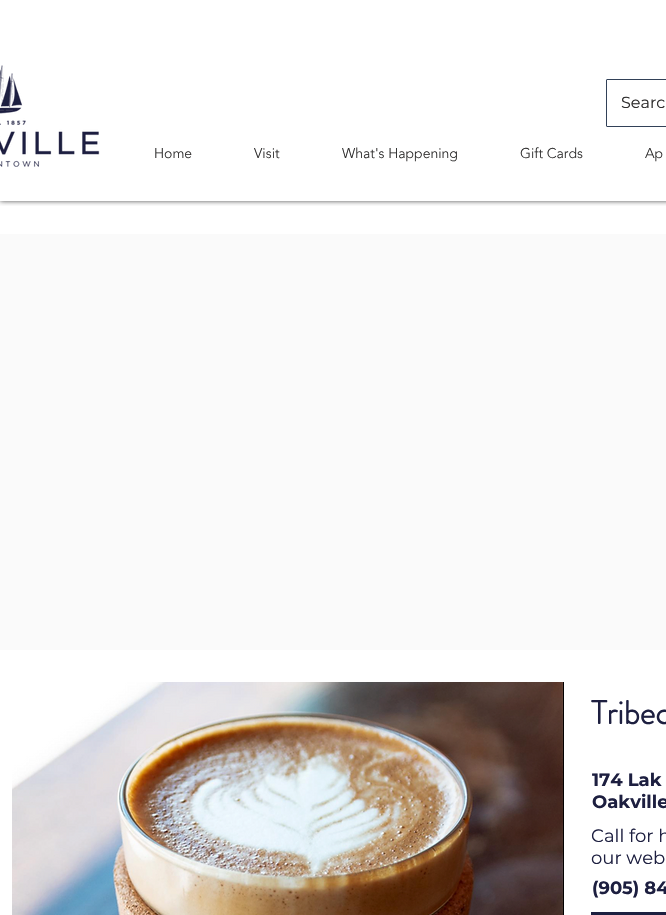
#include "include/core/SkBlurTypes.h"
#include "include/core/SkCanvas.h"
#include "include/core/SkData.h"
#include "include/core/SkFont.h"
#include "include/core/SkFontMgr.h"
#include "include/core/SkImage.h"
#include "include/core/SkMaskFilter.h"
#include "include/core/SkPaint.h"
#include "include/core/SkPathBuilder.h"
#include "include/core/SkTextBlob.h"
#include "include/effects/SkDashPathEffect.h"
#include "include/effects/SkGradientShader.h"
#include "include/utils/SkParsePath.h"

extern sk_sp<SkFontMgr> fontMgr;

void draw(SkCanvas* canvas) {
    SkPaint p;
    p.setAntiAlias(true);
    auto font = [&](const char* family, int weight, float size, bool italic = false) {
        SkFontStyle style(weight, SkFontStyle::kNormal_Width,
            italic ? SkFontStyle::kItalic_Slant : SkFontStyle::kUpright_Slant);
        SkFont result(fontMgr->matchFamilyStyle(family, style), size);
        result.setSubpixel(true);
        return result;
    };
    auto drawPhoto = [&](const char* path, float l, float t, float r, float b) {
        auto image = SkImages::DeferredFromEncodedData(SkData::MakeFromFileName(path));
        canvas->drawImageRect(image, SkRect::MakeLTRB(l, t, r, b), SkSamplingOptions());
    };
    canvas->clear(0xFFFFFFFF);
    canvas->save();
    canvas->clipRect(SkRect::MakeLTRB(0, 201, 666, 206));
    p.setColor(0xB3000000);
    p.setMaskFilter(SkMaskFilter::MakeBlur(kNormal_SkBlurStyle, 2.5f));
    canvas->drawRect(SkRect::MakeLTRB(0, 0, 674, 201), p);
    p.setMaskFilter(nullptr);
    canvas->restore();
    drawPhoto("media/1.png", 0, 65, 100, 167);
    p.setStyle(SkPaint::kStroke_Style);
    p.setStrokeWidth(1);
    p.setColor(0xFF324158);
    canvas->drawRoundRect(SkRect::MakeLTRB(606.5f, 79.5f, 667.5f, 126.5f), 0.5f, 0.5f, p);
    auto font1 = font("Montserrat", 400, 16);
    p.setStyle(SkPaint::kFill_Style);
    p.setColor(0xFF2F2E2E);
    canvas->drawString("Searc", 621, 108, font1, p);
    auto font2 = font("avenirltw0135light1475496", 300, 14);
    {
        const struct { const char* s; float x, y; } items[] = {
            {"Home", 154, 158},
            {"Visit", 254, 158},
            {"What's Happening", 342, 158},
            {"Gift Cards", 520, 158},
            {"Ap", 645, 158},
        };
        for (auto [s, x, y] : items) {
            canvas->drawString(s, x, y, font2, p);
        }
    }
    p.setColor(0xFFFAFAFA);
    canvas->drawRect(SkRect::MakeLTRB(0, 234, 666, 650), p);
    drawPhoto("media/2.png", 12, 682, 564, 915);
    auto font3 = font("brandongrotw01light", 700, 33);
    p.setColor(0xFF1D1F40);
    canvas->drawString("Tribec", 591, 724, font3, p);
    auto font4 = font("Montserrat", 700, 18);
    canvas->drawString("174 Lak", 592, 786, font4, p);
    canvas->drawString("Oakville", 592, 808, font4, p);
    auto font5 = font("Montserrat", 400, 18);
    canvas->drawString("Call for h", 591, 842, font5, p);
    canvas->drawString("our web", 591, 864, font5, p);
    canvas->drawString("(905) 84", 592, 894, font4, p);
    canvas->drawRect(SkRect::MakeLTRB(591, 912, 666, 915), p);
}
